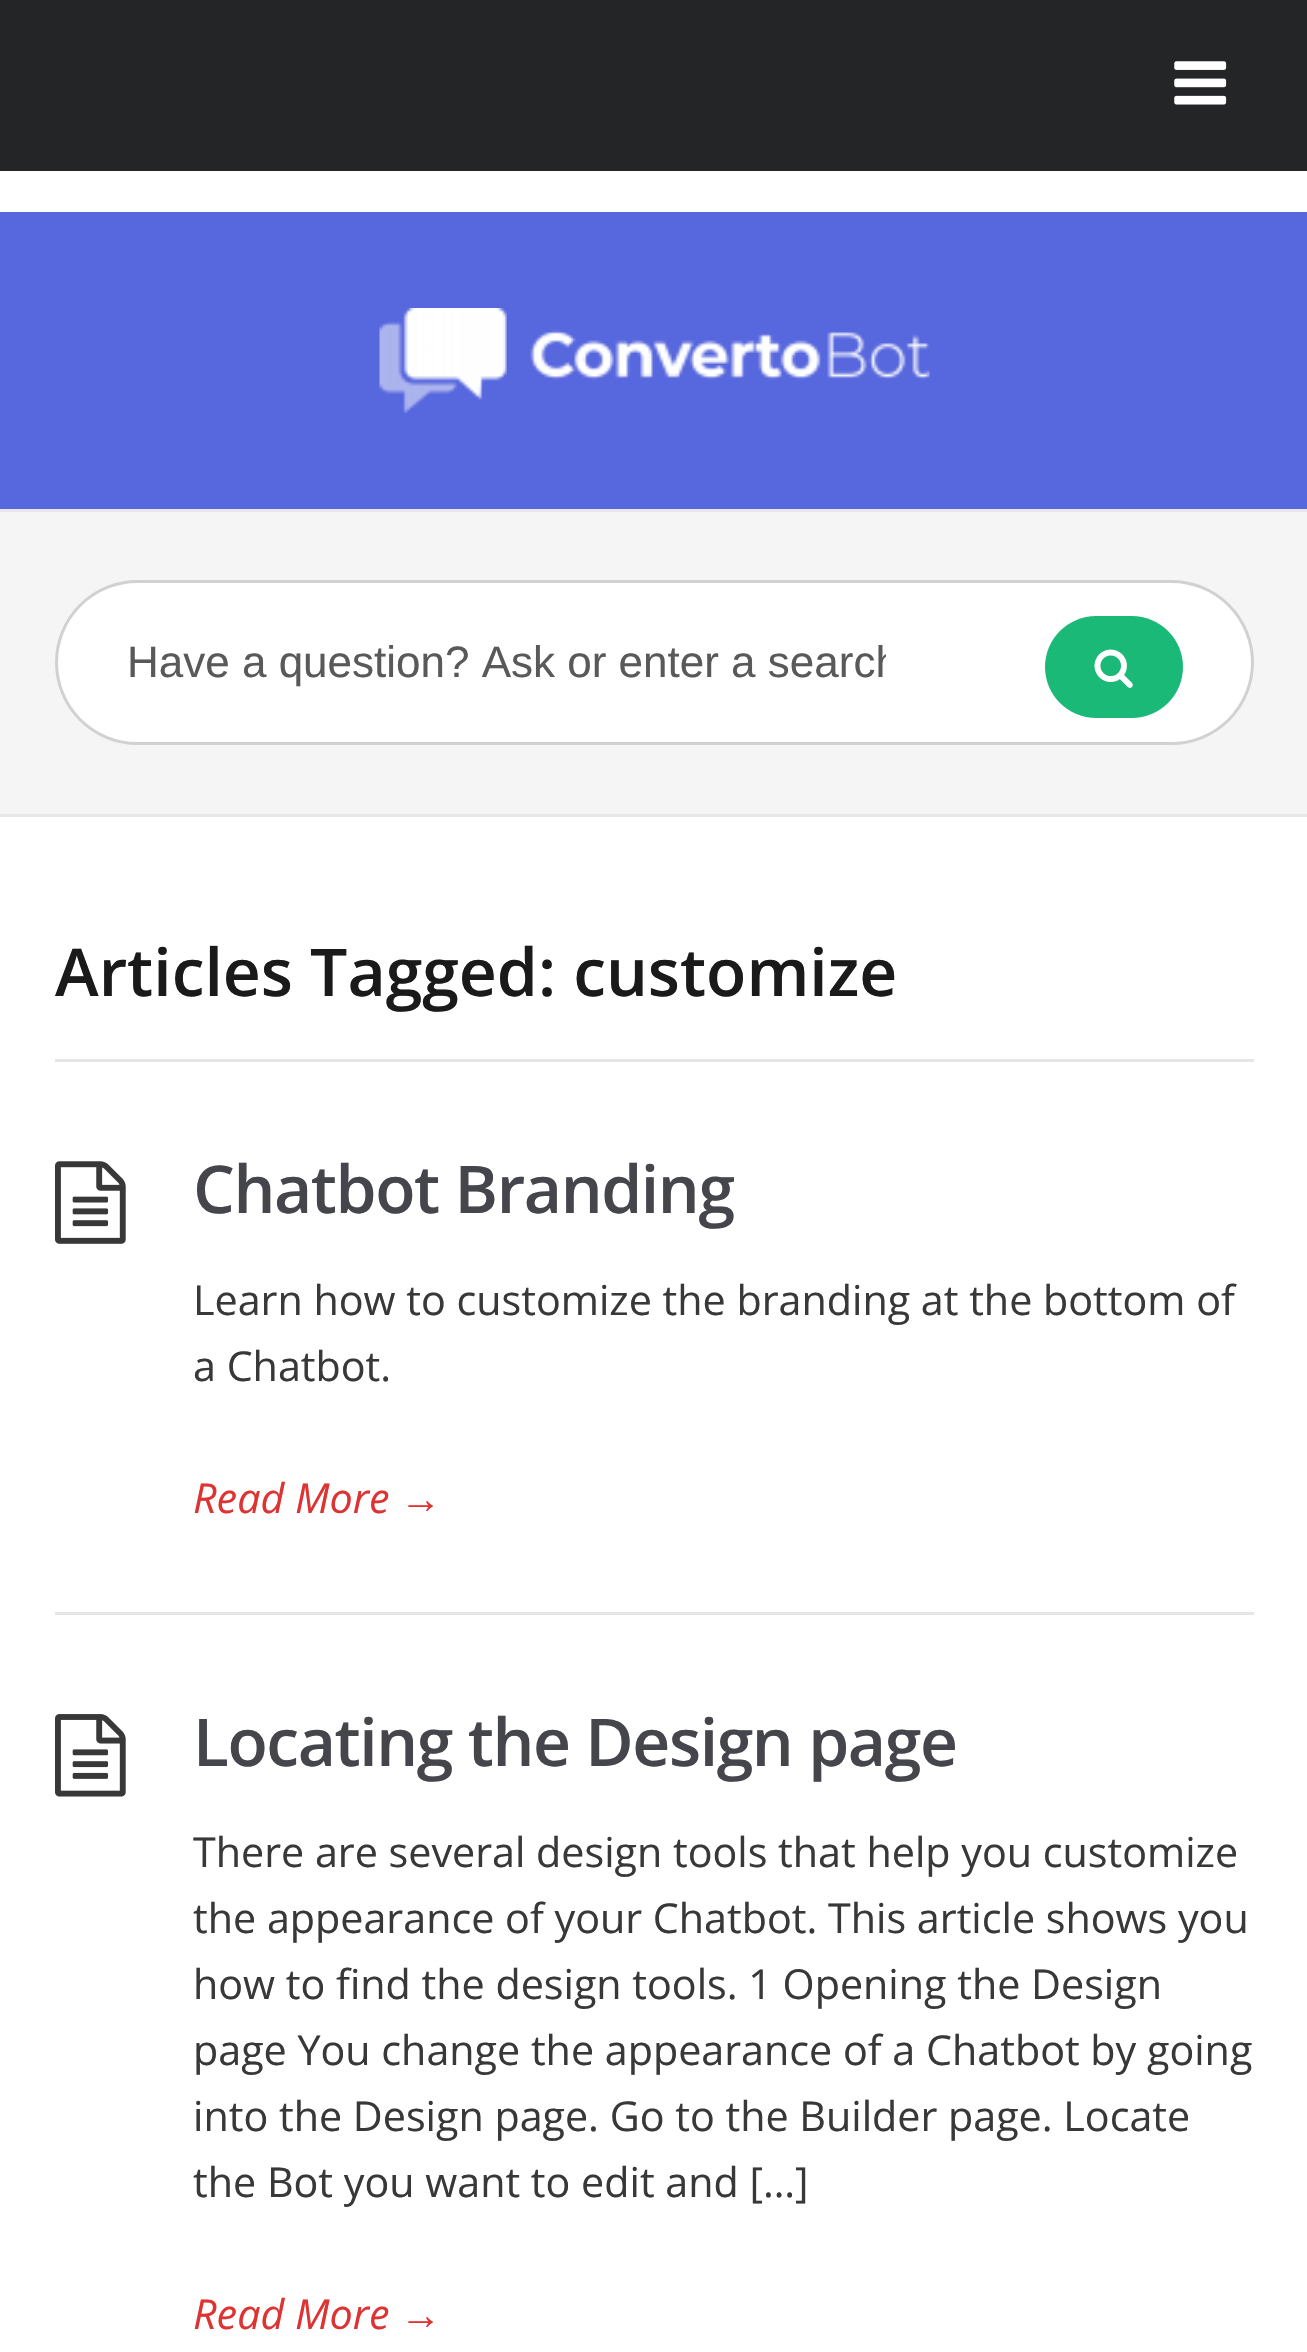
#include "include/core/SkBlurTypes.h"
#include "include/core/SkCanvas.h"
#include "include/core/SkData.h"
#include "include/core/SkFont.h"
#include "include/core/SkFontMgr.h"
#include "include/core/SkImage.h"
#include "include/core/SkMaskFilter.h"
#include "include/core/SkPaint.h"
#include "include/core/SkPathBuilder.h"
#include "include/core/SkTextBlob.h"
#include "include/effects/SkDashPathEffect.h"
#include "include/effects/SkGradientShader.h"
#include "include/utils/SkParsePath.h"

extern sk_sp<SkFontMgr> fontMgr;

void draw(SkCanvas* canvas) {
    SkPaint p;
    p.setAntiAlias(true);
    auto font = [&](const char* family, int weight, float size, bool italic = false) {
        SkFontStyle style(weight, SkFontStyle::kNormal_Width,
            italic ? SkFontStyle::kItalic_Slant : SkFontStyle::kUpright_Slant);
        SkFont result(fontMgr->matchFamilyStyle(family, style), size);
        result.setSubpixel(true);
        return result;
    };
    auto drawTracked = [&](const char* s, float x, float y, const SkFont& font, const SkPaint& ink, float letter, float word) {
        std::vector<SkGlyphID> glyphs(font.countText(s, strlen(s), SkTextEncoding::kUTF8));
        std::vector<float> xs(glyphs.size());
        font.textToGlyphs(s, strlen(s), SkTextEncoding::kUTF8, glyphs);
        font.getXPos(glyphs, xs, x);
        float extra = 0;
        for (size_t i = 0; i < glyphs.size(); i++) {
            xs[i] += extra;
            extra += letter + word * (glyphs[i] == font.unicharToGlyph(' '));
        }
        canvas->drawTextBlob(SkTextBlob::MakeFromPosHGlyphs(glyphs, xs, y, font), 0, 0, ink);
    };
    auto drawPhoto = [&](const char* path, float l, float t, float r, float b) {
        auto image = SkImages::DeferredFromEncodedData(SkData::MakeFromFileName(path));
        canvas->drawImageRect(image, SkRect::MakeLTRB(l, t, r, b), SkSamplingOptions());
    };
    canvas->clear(0xFFFFFFFF);
    p.setColor(0xFF242526);
    canvas->drawRect(SkRect::MakeLTRB(0, 0, 1307, 171), p);
    drawPhoto("media/1.png", 1174, 61, 1227, 105);
    p.setColor(0xFF5767DD);
    canvas->drawRect(SkRect::MakeLTRB(0, 212, 1307, 509), p);
    drawPhoto("media/2.png", 379, 308, 930, 413);
    {
        const struct { float l, t, r, b; SkColor color; } items[] = {
            {0, 512, 1307, 814, 0xFFF5F5F5},
            {0, 509, 1307, 512, 0xFFE8E8E8},
            {0, 814, 1307, 817, 0xFFE8E8E8},
        };
        for (auto [l, t, r, b, color] : items) {
            p.setColor(color);
            canvas->drawRect(SkRect::MakeLTRB(l, t, r, b), p);
        }
    }
    p.setColor(0xFFFFFFFF);
    canvas->drawRoundRect(SkRect::MakeLTRB(56.5f, 581.5f, 1252.5f, 743.5f), 81, 81, p);
    p.setStyle(SkPaint::kStroke_Style);
    p.setStrokeWidth(3);
    p.setColor(0xFFD1D1D1);
    canvas->drawRoundRect(SkRect::MakeLTRB(56.5f, 581.5f, 1252.5f, 743.5f), 81, 81, p);
    canvas->save();
    canvas->clipRect(SkRect::MakeLTRB(127, 638, 886, 688));
    auto font1 = font("Liberation Sans", 400, 44);
    p.setStyle(SkPaint::kFill_Style);
    p.setColor(0xFF595959);
    canvas->drawString("Have a question? Ask or enter a search", 127, 677, font1, p);
    canvas->restore();
    p.setColor(0xFF1BB978);
    canvas->drawRoundRect(SkRect::MakeLTRB(1045, 616, 1183, 718), 51, 51, p);
    drawPhoto("media/3.png", 1094, 649, 1133, 688);
    p.setColor(0xFFE6E6E6);
    canvas->drawRect(SkRect::MakeLTRB(55, 1059, 1254, 1062), p);
    auto font2 = font("Open Sans", 600, 66);
    p.setColor(0xFF1A1A1A);
    canvas->drawString("Articles Tagged: customize", 55, 996, font2, p);
    p.setColor(0xFFE6E6E6);
    canvas->drawRect(SkRect::MakeLTRB(55, 1612, 1254, 1615), p);
    drawPhoto("media/4.png", 55, 1161, 126, 1244);
    p.setColor(0xFF45454C);
    drawTracked("Chatbot Branding", 193, 1213, font2, p, -1.4f, 0);
    auto font3 = font("Open Sans", 400, 41.25f);
    p.setColor(0xFF383838);
    canvas->drawString("Learn how to customize the branding at the bottom of", 193, 1315, font3, p);
    canvas->drawString("a Chatbot.", 193, 1381, font3, p);
    auto font4 = font("Open Sans", 400, 41.25f, true);
    p.setColor(0xFFDD3333);
    canvas->drawString("Read More", 193, 1513, font4, p);
    auto font5 = font("Liberation Sans", 400, 41.25f, true);
    canvas->drawString("→", 400, 1513, font5, p);
    drawPhoto("media/5.png", 55, 1714, 126, 1797);
    p.setColor(0xFF45454C);
    drawTracked("Locating the Design page", 193, 1766, font2, p, -1.4f, 0);
    p.setColor(0xFF383838);
    {
        const struct { const char* s; float x, y; } items[] = {
            {"There are several design tools that help you customize", 193, 1867},
            {"the appearance of your Chatbot. This article shows you", 193, 1933},
            {"how to find the design tools. 1 Opening the Design", 193, 1999},
            {"page You change the appearance of a Chatbot by going", 193, 2065},
            {"into the Design page. Go to the Builder page. Locate", 193, 2131},
            {"the Bot you want to edit and […]", 193, 2197},
        };
        for (auto [s, x, y] : items) {
            canvas->drawString(s, x, y, font3, p);
        }
    }
    p.setColor(0xFFDD3333);
    canvas->drawString("Read More", 193, 2329, font4, p);
    canvas->drawString("→", 400, 2329, font5, p);
}
